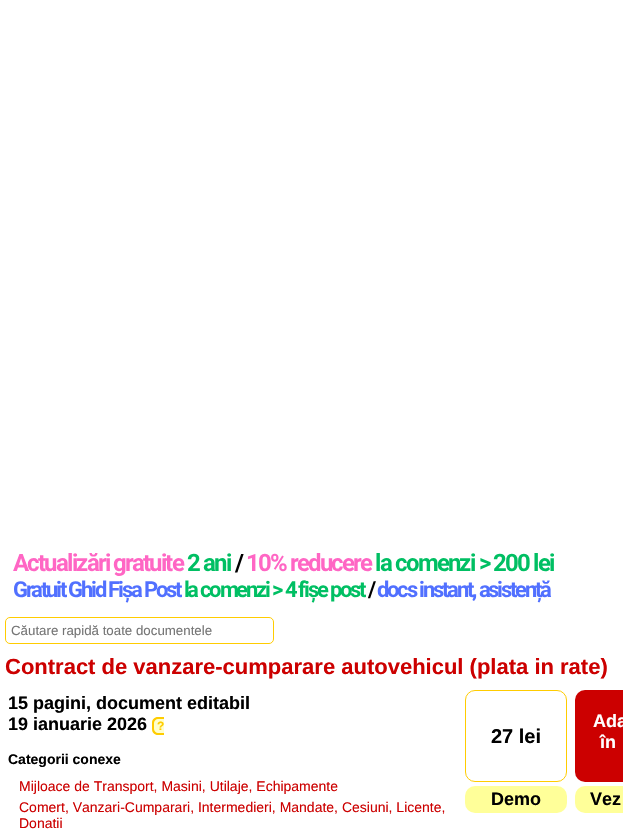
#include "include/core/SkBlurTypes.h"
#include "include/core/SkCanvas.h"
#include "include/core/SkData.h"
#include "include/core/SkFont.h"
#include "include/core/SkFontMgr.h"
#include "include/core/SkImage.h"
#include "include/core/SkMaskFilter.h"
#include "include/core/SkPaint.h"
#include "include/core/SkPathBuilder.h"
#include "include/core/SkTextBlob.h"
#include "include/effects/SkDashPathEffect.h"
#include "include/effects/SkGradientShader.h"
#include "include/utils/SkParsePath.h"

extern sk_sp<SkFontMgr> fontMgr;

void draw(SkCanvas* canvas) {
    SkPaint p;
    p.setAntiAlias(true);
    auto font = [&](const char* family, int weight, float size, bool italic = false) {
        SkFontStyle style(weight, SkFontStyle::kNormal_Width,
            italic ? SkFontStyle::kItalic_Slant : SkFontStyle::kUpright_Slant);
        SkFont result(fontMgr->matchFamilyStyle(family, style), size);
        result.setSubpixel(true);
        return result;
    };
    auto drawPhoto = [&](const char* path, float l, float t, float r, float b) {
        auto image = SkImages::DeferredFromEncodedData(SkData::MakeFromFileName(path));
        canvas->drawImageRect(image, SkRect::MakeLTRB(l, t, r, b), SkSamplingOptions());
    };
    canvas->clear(0xFFFFFFFF);
    drawPhoto("media/1.png", 13, 553, 554, 603);
    p.setStyle(SkPaint::kStroke_Style);
    p.setStrokeWidth(1);
    p.setColor(0xFFFFCC00);
    canvas->drawRoundRect(SkRect::MakeLTRB(5.5f, 617.5f, 273.5f, 643.5f), 4.5f, 4.5f, p);
    auto font1 = font("Liberation Sans", 400, 13.3f);
    p.setStyle(SkPaint::kFill_Style);
    p.setColor(0xFF757575);
    canvas->drawString("Căutare rapidă toate documentele", 11, 635, font1, p);
    auto font2 = font("Liberation Sans", 700, 22);
    p.setColor(0xFFCC0000);
    canvas->drawString("Contract de vanzare-cumparare autovehicul (plata in rate)", 5, 674, font2, p);
    auto font3 = font("Liberation Sans", 700, 18);
    p.setColor(0xFF000000);
    canvas->drawString("15 pagini, document editabil", 8, 709, font3, p);
    canvas->drawString("19 ianuarie 2026", 8, 730, font3, p);
    p.setColor(0xFFFFFFCC);
    canvas->drawPath(SkPathBuilder().moveTo(158, 717).lineTo(164, 717).lineTo(164, 735).lineTo(158, 735).cubicTo(154.5f, 735, 152, 732.5f, 152, 729).lineTo(152, 723).cubicTo(152, 719.5f, 154.5f, 717, 158, 717).close().detach(), p);
    p.setColor(0xFFFFCC00);
    canvas->drawPath(SkPathBuilder(SkPathFillType::kEvenOdd).moveTo(158, 717).lineTo(164, 717).lineTo(164, 735).lineTo(158, 735).cubicTo(154.5f, 735, 152, 732.5f, 152, 729).lineTo(152, 723).cubicTo(152, 719.5f, 154.5f, 717, 158, 717).close().moveTo(158, 719).lineTo(164, 719).lineTo(164, 733).lineTo(158, 733).cubicTo(156, 733, 154, 731, 154, 729).lineTo(154, 723).cubicTo(154, 721, 156, 719, 158, 719).close().detach(), p);
    auto font4 = font("Liberation Sans", 700, 12);
    canvas->drawString("?", 157, 730, font4, p);
    auto font5 = font("Liberation Sans", 700, 14);
    p.setColor(0xFF000000);
    canvas->drawString("Categorii conexe", 8, 764, font5, p);
    auto font6 = font("Liberation Sans", 400, 14);
    p.setColor(0xFFCC0000);
    {
        const struct { const char* s; float x, y; } items[] = {
            {"Mijloace de Transport, Masini, Utilaje, Echipamente", 19, 791},
            {"Comert, Vanzari-Cumparari, Intermedieri, Mandate, Cesiuni, Licente,", 19, 812},
            {"Donatii", 19, 828},
        };
        for (auto [s, x, y] : items) {
            canvas->drawString(s, x, y, font6, p);
        }
    }
    p.setStyle(SkPaint::kStroke_Style);
    p.setColor(0xFFFFCC00);
    canvas->drawRoundRect(SkRect::MakeLTRB(465.5f, 690.5f, 566.5f, 781.5f), 9.5f, 9.5f, p);
    auto font7 = font("Liberation Sans", 700, 20);
    p.setStyle(SkPaint::kFill_Style);
    p.setColor(0xFF000000);
    canvas->drawString("27 lei", 491, 743, font7, p);
    p.setColor(0xFFFFFF99);
    canvas->drawRoundRect(SkRect::MakeLTRB(465, 786, 567, 813), 10, 10, p);
    p.setColor(0xFF000000);
    canvas->drawString("Demo", 491, 805, font3, p);
    p.setColor(0xFFCC0000);
    canvas->drawRoundRect(SkRect::MakeLTRB(575, 690, 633, 782), 10, 10, p);
    p.setColor(0xFFFFFFFF);
    canvas->drawString("Ada", 593, 727, font3, p);
    canvas->drawString("în", 600, 748, font3, p);
    p.setColor(0xFFFFFF99);
    canvas->drawRoundRect(SkRect::MakeLTRB(575, 786, 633, 813), 10, 10, p);
    p.setColor(0xFF000000);
    canvas->drawString("Vez", 590, 805, font3, p);
}
